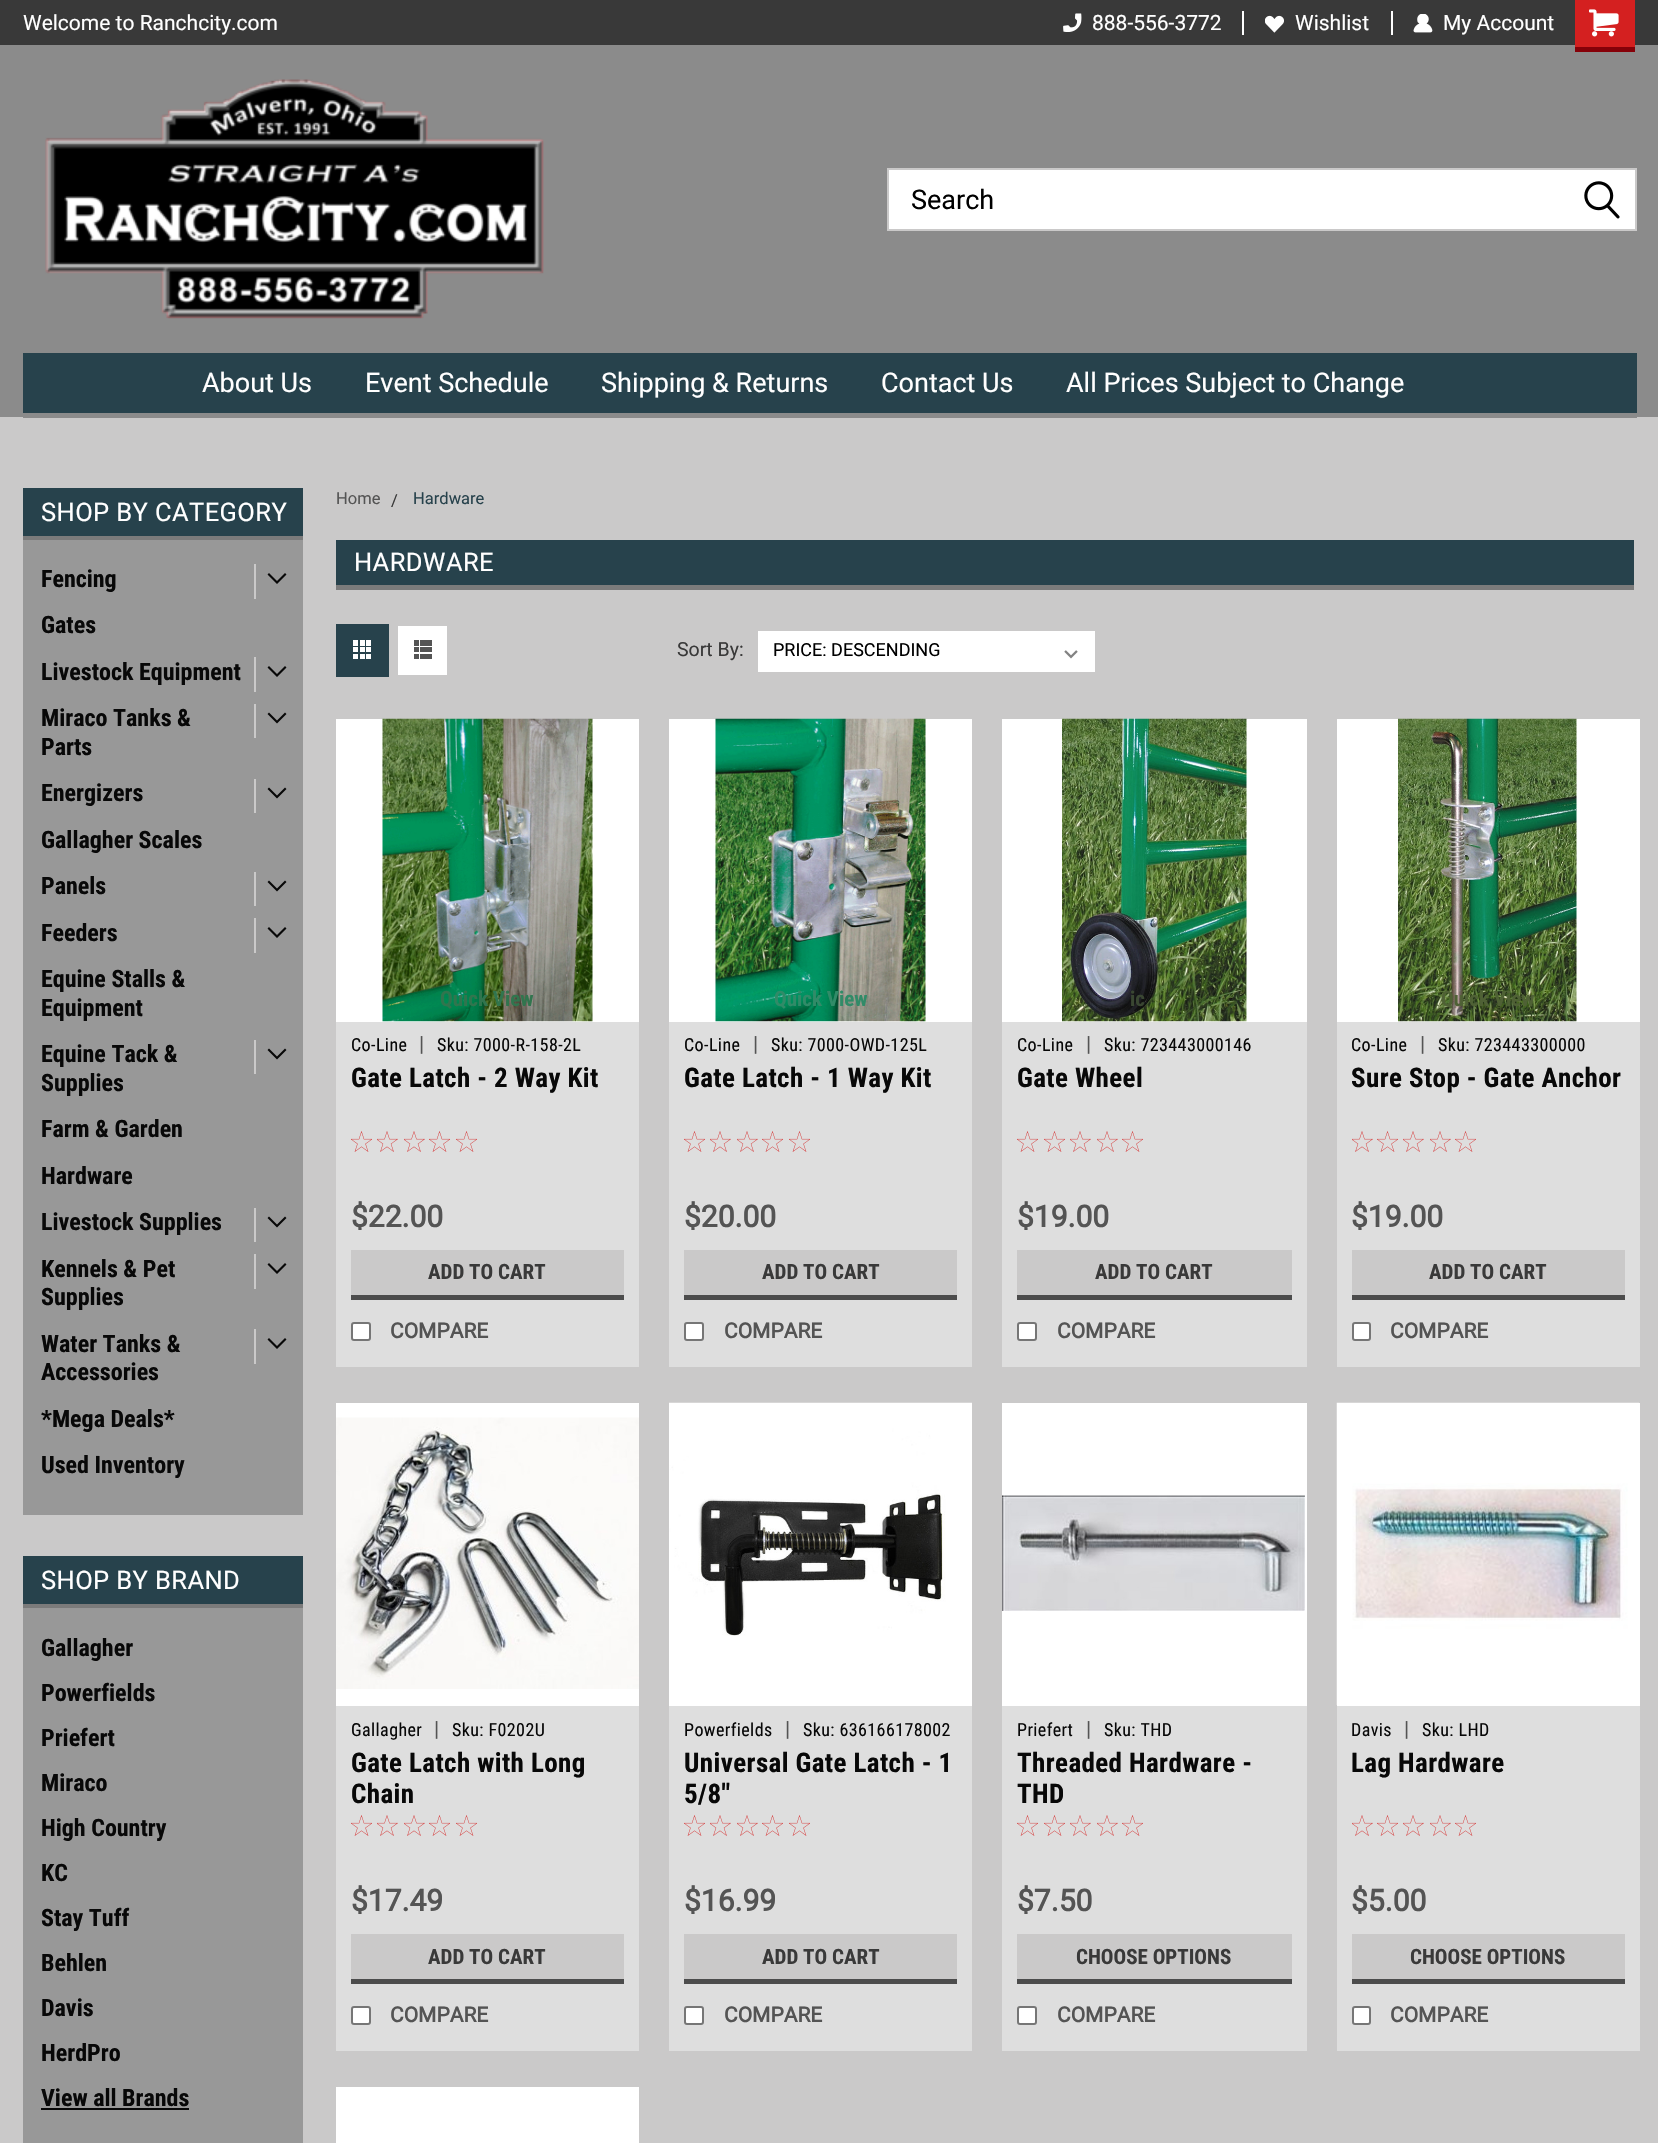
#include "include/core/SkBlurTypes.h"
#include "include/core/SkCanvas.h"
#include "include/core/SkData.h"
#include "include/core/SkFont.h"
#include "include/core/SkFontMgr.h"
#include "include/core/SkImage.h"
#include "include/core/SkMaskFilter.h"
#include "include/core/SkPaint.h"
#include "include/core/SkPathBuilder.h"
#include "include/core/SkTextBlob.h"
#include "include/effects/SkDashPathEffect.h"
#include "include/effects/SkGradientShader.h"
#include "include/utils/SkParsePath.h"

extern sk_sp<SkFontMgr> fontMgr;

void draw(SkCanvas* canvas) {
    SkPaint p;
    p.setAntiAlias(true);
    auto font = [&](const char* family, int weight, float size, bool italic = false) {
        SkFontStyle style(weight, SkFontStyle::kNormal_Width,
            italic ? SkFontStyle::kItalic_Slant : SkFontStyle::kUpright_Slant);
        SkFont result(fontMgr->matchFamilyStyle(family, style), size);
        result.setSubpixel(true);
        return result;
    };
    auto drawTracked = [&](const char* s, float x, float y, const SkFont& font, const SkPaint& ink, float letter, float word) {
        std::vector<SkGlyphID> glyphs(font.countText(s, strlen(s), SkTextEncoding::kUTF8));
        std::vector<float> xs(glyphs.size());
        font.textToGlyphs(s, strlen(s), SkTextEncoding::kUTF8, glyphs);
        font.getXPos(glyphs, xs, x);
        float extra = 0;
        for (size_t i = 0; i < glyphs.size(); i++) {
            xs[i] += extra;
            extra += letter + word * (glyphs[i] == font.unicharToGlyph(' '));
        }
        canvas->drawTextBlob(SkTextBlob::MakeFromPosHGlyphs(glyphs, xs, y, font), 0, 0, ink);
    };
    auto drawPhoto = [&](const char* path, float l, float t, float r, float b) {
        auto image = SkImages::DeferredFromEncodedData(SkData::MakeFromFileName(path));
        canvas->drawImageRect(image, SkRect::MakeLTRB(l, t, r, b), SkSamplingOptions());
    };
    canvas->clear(0xFFCAC9C9);
    p.setColor(0xFF8B8B8B);
    canvas->drawRect(SkRect::MakeLTRB(0, 45, 1658, 417), p);
    p.setColor(0xFF393939);
    canvas->drawRect(SkRect::MakeLTRB(0, 0, 1658, 45), p);
    auto font1 = font("Roboto", 400, 21);
    p.setColor(0xFFFFFFFF);
    canvas->drawString("Welcome to Ranchcity.com", 23, 30, font1, p);
    canvas->drawRect(SkRect::MakeLTRB(1242, 11, 1244, 35), p);
    drawPhoto("media/1.png", 1063, 13, 1082, 32);
    canvas->drawString("888-556-3772", 1092, 30, font1, p);
    canvas->drawRect(SkRect::MakeLTRB(1391, 11, 1393, 35), p);
    drawPhoto("media/2.png", 1265, 15, 1284, 33);
    canvas->drawString("Wishlist", 1295, 30, font1, p);
    drawPhoto("media/3.png", 1413, 14, 1433, 33);
    canvas->drawString("My Account", 1443, 30, font1, p);
    p.setColor(0xFFD42020);
    canvas->drawRect(SkRect::MakeLTRB(1575, 0, 1635, 47), p);
    p.setColor(0xFF860109);
    canvas->drawRect(SkRect::MakeLTRB(1575, 47, 1635, 52), p);
    drawPhoto("media/4.png", 1589, 9, 1619, 37);
    drawPhoto("media/5.png", 45, 79, 544, 319);
    p.setColor(0xFFFFFFFF);
    canvas->drawRect(SkRect::MakeLTRB(888, 169, 1636, 230), p);
    p.setStyle(SkPaint::kStroke_Style);
    p.setStrokeWidth(2);
    p.setColor(0xFFCAC9C9);
    canvas->drawRect(SkRect::MakeLTRB(888, 169, 1636, 230), p);
    auto font2 = font("Roboto", 400, 27);
    p.setStyle(SkPaint::kFill_Style);
    p.setColor(0xFF000000);
    canvas->drawString("Search", 911, 209, font2, p);
    drawPhoto("media/6.png", 1584, 181, 1620, 219);
    p.setColor(0xFF27424C);
    canvas->drawRect(SkRect::MakeLTRB(23, 353, 1637, 413), p);
    p.setColor(0xFF8B8B8B);
    canvas->drawRect(SkRect::MakeLTRB(23, 417, 1637, 418), p);
    p.setColor(0xFFFFFFFF);
    {
        const struct { const char* s; float x, y; } items[] = {
            {"About Us", 202, 392},
            {"Event Schedule", 365, 392},
            {"Shipping & Returns", 601, 392},
            {"Contact Us", 881, 392},
            {"All Prices Subject to Change", 1066, 392},
        };
        for (auto [s, x, y] : items) {
            canvas->drawString(s, x, y, font2, p);
        }
    }
    p.setColor(0xFF27424C);
    canvas->drawRect(SkRect::MakeLTRB(23, 488, 303, 536), p);
    p.setColor(0xFF7B7B7B);
    canvas->drawRect(SkRect::MakeLTRB(23, 536, 309, 540), p);
    auto font3 = font("Roboto", 400, 25.5f);
    p.setColor(0xFFFFFFFF);
    drawTracked("SHOP BY CATEGORY", 41, 521, font3, p, 0.4f, 0);
    p.setColor(0xFF989898);
    canvas->drawRect(SkRect::MakeLTRB(23, 540, 303, 1515), p);
    auto font4 = font("Roboto Condensed", 700, 24);
    p.setColor(0xFF080808);
    canvas->drawString("Fencing", 41, 587, font4, p);
    p.setColor(0xFFCAC9C9);
    canvas->drawRect(SkRect::MakeLTRB(254, 564, 256, 599), p);
    p.setColor(0xFF080808);
    canvas->drawPath(SkPathBuilder().moveTo(286.5f, 574.5f).lineTo(277, 584).lineTo(267.5f, 574.5f).lineTo(269, 573).lineTo(277, 581).lineTo(285, 573).close().detach(), p);
    canvas->drawString("Gates", 41, 633, font4, p);
    canvas->drawString("Livestock Equipment", 41, 680, font4, p);
    p.setColor(0xFFCAC9C9);
    canvas->drawRect(SkRect::MakeLTRB(254, 657, 256, 692), p);
    p.setColor(0xFF080808);
    canvas->drawPath(SkPathBuilder().moveTo(286.5f, 667.5f).lineTo(277, 677).lineTo(267.5f, 667.5f).lineTo(269, 666).lineTo(277, 674).lineTo(285, 666).close().detach(), p);
    canvas->drawString("Miraco Tanks &", 41, 726, font4, p);
    canvas->drawString("Parts", 41, 755, font4, p);
    p.setColor(0xFFCAC9C9);
    canvas->drawRect(SkRect::MakeLTRB(254, 704, 256, 738), p);
    p.setColor(0xFF080808);
    canvas->drawPath(SkPathBuilder().moveTo(286.5f, 714).lineTo(277, 723.5f).lineTo(267.5f, 714).lineTo(269, 712.5f).lineTo(277, 720.5f).lineTo(285, 712.5f).close().detach(), p);
    canvas->drawString("Energizers", 41, 801, font4, p);
    p.setColor(0xFFCAC9C9);
    canvas->drawRect(SkRect::MakeLTRB(254, 779, 256, 813), p);
    p.setColor(0xFF080808);
    canvas->drawPath(SkPathBuilder().moveTo(286.5f, 789).lineTo(277, 798.5f).lineTo(267.5f, 789).lineTo(269, 787.5f).lineTo(277, 795.5f).lineTo(285, 787.5f).close().detach(), p);
    canvas->drawString("Gallagher Scales", 41, 848, font4, p);
    canvas->drawString("Panels", 41, 894, font4, p);
    p.setColor(0xFFCAC9C9);
    canvas->drawRect(SkRect::MakeLTRB(254, 872, 256, 906), p);
    p.setColor(0xFF080808);
    canvas->drawPath(SkPathBuilder().moveTo(286.5f, 882).lineTo(277, 891.5f).lineTo(267.5f, 882).lineTo(269, 880.5f).lineTo(277, 888.5f).lineTo(285, 880.5f).close().detach(), p);
    canvas->drawString("Feeders", 41, 941, font4, p);
    p.setColor(0xFFCAC9C9);
    canvas->drawRect(SkRect::MakeLTRB(254, 918, 256, 953), p);
    p.setColor(0xFF080808);
    canvas->drawPath(SkPathBuilder().moveTo(286.5f, 928.5f).lineTo(277, 938).lineTo(267.5f, 928.5f).lineTo(269, 927).lineTo(277, 935).lineTo(285, 927).close().detach(), p);
    {
        const struct { const char* s; float x, y; } items[] = {
            {"Equine Stalls &", 41, 987},
            {"Equipment", 41, 1016},
            {"Equine Tack &", 41, 1062},
            {"Supplies", 41, 1091},
        };
        for (auto [s, x, y] : items) {
            canvas->drawString(s, x, y, font4, p);
        }
    }
    p.setColor(0xFFCAC9C9);
    canvas->drawRect(SkRect::MakeLTRB(254, 1040, 256, 1074), p);
    p.setColor(0xFF080808);
    canvas->drawPath(SkPathBuilder().moveTo(286.5f, 1050).lineTo(277, 1059.5f).lineTo(267.5f, 1050).lineTo(269, 1048.5f).lineTo(277, 1056.5f).lineTo(285, 1048.5f).close().detach(), p);
    {
        const struct { const char* s; float x, y; } items[] = {
            {"Farm & Garden", 41, 1137},
            {"Hardware", 41, 1184},
            {"Livestock Supplies", 41, 1230},
        };
        for (auto [s, x, y] : items) {
            canvas->drawString(s, x, y, font4, p);
        }
    }
    p.setColor(0xFFCAC9C9);
    canvas->drawRect(SkRect::MakeLTRB(254, 1208, 256, 1242), p);
    p.setColor(0xFF080808);
    canvas->drawPath(SkPathBuilder().moveTo(286.5f, 1218).lineTo(277, 1227.5f).lineTo(267.5f, 1218).lineTo(269, 1216.5f).lineTo(277, 1224.5f).lineTo(285, 1216.5f).close().detach(), p);
    canvas->drawString("Kennels & Pet", 41, 1277, font4, p);
    canvas->drawString("Supplies", 41, 1305, font4, p);
    p.setColor(0xFFCAC9C9);
    canvas->drawRect(SkRect::MakeLTRB(254, 1254, 256, 1289), p);
    p.setColor(0xFF080808);
    canvas->drawPath(SkPathBuilder().moveTo(286.5f, 1264.5f).lineTo(277, 1274).lineTo(267.5f, 1264.5f).lineTo(269, 1263).lineTo(277, 1271).lineTo(285, 1263).close().detach(), p);
    canvas->drawString("Water Tanks &", 41, 1352, font4, p);
    canvas->drawString("Accessories", 41, 1380, font4, p);
    p.setColor(0xFFCAC9C9);
    canvas->drawRect(SkRect::MakeLTRB(254, 1329, 256, 1364), p);
    p.setColor(0xFF080808);
    canvas->drawPath(SkPathBuilder().moveTo(286.5f, 1339.5f).lineTo(277, 1349).lineTo(267.5f, 1339.5f).lineTo(269, 1338).lineTo(277, 1346).lineTo(285, 1338).close().detach(), p);
    canvas->drawString("*Mega Deals*", 41, 1427, font4, p);
    canvas->drawString("Used Inventory", 41, 1473, font4, p);
    p.setColor(0xFF27424C);
    canvas->drawRect(SkRect::MakeLTRB(23, 1556, 303, 1604), p);
    p.setColor(0xFF7B7B7B);
    canvas->drawRect(SkRect::MakeLTRB(23, 1604, 309, 1608), p);
    p.setColor(0xFFFFFFFF);
    drawTracked("SHOP BY BRAND", 41, 1589, font3, p, 0.4f, 0);
    p.setColor(0xFF989898);
    canvas->drawRect(SkRect::MakeLTRB(23, 1608, 303, 2143), p);
    p.setColor(0xFF080808);
    {
        const struct { const char* s; float x, y; } items[] = {
            {"Gallagher", 41, 1656},
            {"Powerfields", 41, 1701},
            {"Priefert", 41, 1746},
            {"Miraco", 41, 1791},
            {"High Country", 41, 1836},
            {"KC", 41, 1881},
            {"Stay Tuff", 41, 1926},
            {"Behlen", 41, 1971},
            {"Davis", 41, 2016},
            {"HerdPro", 41, 2061},
            {"View all Brands", 41, 2106},
        };
        for (auto [s, x, y] : items) {
            canvas->drawString(s, x, y, font4, p);
        }
    }
    canvas->drawRect(SkRect::MakeLTRB(41, 2108, 189, 2110), p);
    p.setColor(0xFFCAC9C9);
    canvas->drawRect(SkRect::MakeLTRB(303, 536, 309, 1608), p);
    auto font5 = font("Roboto", 400, 16.5f);
    p.setColor(0xFF545454);
    canvas->drawString("Home", 336, 504, font5, p);
    p.setColor(0xFF393939);
    canvas->drawString("/", 391, 506, font5, p);
    p.setColor(0xFF27424C);
    canvas->drawString("Hardware", 413, 504, font5, p);
    canvas->drawRect(SkRect::MakeLTRB(336, 540, 1634, 585), p);
    p.setColor(0xFF7B7B7B);
    canvas->drawRect(SkRect::MakeLTRB(336, 585, 1634, 590), p);
    p.setColor(0xFFFFFFFF);
    drawTracked("HARDWARE", 354, 571, font3, p, 0.4f, 0);
    p.setColor(0xFF27424C);
    canvas->drawRect(SkRect::MakeLTRB(336, 624, 389, 677), p);
    drawPhoto("media/7.png", 353, 640, 371, 659);
    p.setColor(0xFFFFFFFF);
    canvas->drawRect(SkRect::MakeLTRB(398, 626, 447, 675), p);
    drawPhoto("media/8.png", 414, 640, 432, 659);
    auto font6 = font("Roboto", 400, 19.5f);
    p.setColor(0xFF393939);
    canvas->drawString("Sort By:", 677, 656, font6, p);
    p.setColor(0xFFFFFFFF);
    canvas->drawRect(SkRect::MakeLTRB(758, 631, 1095, 672), p);
    drawPhoto("media/9.png", 1064, 650, 1078, 659);
    auto font7 = font("Roboto", 400, 18);
    p.setColor(0xFF000000);
    canvas->drawString("PRICE: DESCENDING", 773, 656, font7, p);
    p.setColor(0xFFDEDEDE);
    canvas->drawRect(SkRect::MakeLTRB(336, 1022, 639, 1367), p);
    p.setColor(0xFFFFFFFF);
    canvas->drawRect(SkRect::MakeLTRB(336, 719, 639, 1022), p);
    drawPhoto("media/10.png", 382, 718, 593, 1022);
    auto font8 = font("Roboto Condensed", 700, 21);
    p.setColor(0xFF31754E);
    canvas->drawString("Quick View", 440, 1006, font8, p);
    auto font9 = font("Roboto Condensed", 400, 18);
    p.setColor(0xFF080808);
    drawTracked("Co-Line", 351, 1051, font9, p, 0.4f, 0);
    p.setColor(0xFF545454);
    canvas->drawString("|", 419, 1051, font1, p);
    p.setColor(0xFF080808);
    drawTracked("Sku: 7000-R-158-2L", 437, 1051, font9, p, 0.4f, 0);
    auto font10 = font("Roboto Condensed", 700, 27);
    drawTracked("Gate Latch - 2 Way Kit", 351, 1087, font10, p, 0.4f, 0);
    drawPhoto("media/11.png", 351, 1131, 372, 1152);
    drawPhoto("media/12.png", 377, 1131, 398, 1152);
    drawPhoto("media/12.png", 404, 1131, 425, 1152);
    drawPhoto("media/11.png", 429, 1131, 450, 1152);
    drawPhoto("media/11.png", 456, 1131, 477, 1152);
    auto font11 = font("Roboto", 700, 30);
    p.setColor(0xFF545454);
    canvas->drawString("$22.00", 351, 1227, font11, p);
    p.setColor(0xFFCAC9C9);
    canvas->drawRect(SkRect::MakeLTRB(351, 1250, 624, 1295), p);
    p.setColor(0xFF4C4C4C);
    canvas->drawRect(SkRect::MakeLTRB(351, 1295, 624, 1300), p);
    p.setColor(0xFF393939);
    canvas->drawString("ADD TO CART", 428, 1279, font8, p);
    p.setColor(0xFFFFFFFF);
    canvas->drawRoundRect(SkRect::MakeLTRB(352, 1323, 370, 1340), 2, 2, p);
    p.setStyle(SkPaint::kStroke_Style);
    p.setColor(0xFF767676);
    canvas->drawRoundRect(SkRect::MakeLTRB(352, 1323, 370, 1340), 2, 2, p);
    auto font12 = font("Roboto", 700, 21);
    p.setStyle(SkPaint::kFill_Style);
    p.setColor(0xFF545454);
    canvas->drawString("COMPARE", 390, 1338, font12, p);
    p.setColor(0xFFDEDEDE);
    canvas->drawRect(SkRect::MakeLTRB(669, 1022, 972, 1367), p);
    p.setColor(0xFFFFFFFF);
    canvas->drawRect(SkRect::MakeLTRB(669, 719, 972, 1022), p);
    drawPhoto("media/13.png", 715, 718, 926, 1022);
    p.setColor(0xFF318B68);
    canvas->drawString("Quick View", 774, 1006, font8, p);
    p.setColor(0xFF080808);
    drawTracked("Co-Line", 684, 1051, font9, p, 0.4f, 0);
    p.setColor(0xFF545454);
    canvas->drawString("|", 753, 1051, font1, p);
    p.setColor(0xFF080808);
    drawTracked("Sku: 7000-OWD-125L", 771, 1051, font9, p, 0.4f, 0);
    drawTracked("Gate Latch - 1 Way Kit", 684, 1087, font10, p, 0.4f, 0);
    drawPhoto("media/11.png", 684, 1131, 705, 1152);
    drawPhoto("media/12.png", 710, 1131, 731, 1152);
    drawPhoto("media/12.png", 737, 1131, 758, 1152);
    drawPhoto("media/11.png", 762, 1131, 783, 1152);
    drawPhoto("media/11.png", 789, 1131, 810, 1152);
    p.setColor(0xFF545454);
    canvas->drawString("$20.00", 684, 1227, font11, p);
    p.setColor(0xFFCAC9C9);
    canvas->drawRect(SkRect::MakeLTRB(684, 1250, 957, 1295), p);
    p.setColor(0xFF4C4C4C);
    canvas->drawRect(SkRect::MakeLTRB(684, 1295, 957, 1300), p);
    p.setColor(0xFF393939);
    canvas->drawString("ADD TO CART", 762, 1279, font8, p);
    p.setColor(0xFFFFFFFF);
    canvas->drawRoundRect(SkRect::MakeLTRB(685, 1323, 703, 1340), 2, 2, p);
    p.setStyle(SkPaint::kStroke_Style);
    p.setColor(0xFF767676);
    canvas->drawRoundRect(SkRect::MakeLTRB(685, 1323, 703, 1340), 2, 2, p);
    p.setStyle(SkPaint::kFill_Style);
    p.setColor(0xFF545454);
    canvas->drawString("COMPARE", 724, 1338, font12, p);
    p.setColor(0xFFDEDEDE);
    canvas->drawRect(SkRect::MakeLTRB(1002, 1022, 1307, 1367), p);
    p.setColor(0xFFFFFFFF);
    canvas->drawRect(SkRect::MakeLTRB(1002, 719, 1307, 1022), p);
    drawPhoto("media/14.png", 1062, 718, 1247, 1022);
    p.setColor(0xFF3A4732);
    canvas->drawString("ic", 1130, 1006, font8, p);
    p.setColor(0xFF080808);
    drawTracked("Co-Line", 1017, 1051, font9, p, 0.4f, 0);
    p.setColor(0xFF545454);
    canvas->drawString("|", 1086, 1051, font1, p);
    p.setColor(0xFF080808);
    drawTracked("Sku: 723443000146", 1104, 1051, font9, p, 0.4f, 0);
    drawTracked("Gate Wheel", 1017, 1087, font10, p, 0.4f, 0);
    drawPhoto("media/11.png", 1017, 1131, 1038, 1152);
    drawPhoto("media/11.png", 1044, 1131, 1065, 1152);
    drawPhoto("media/12.png", 1070, 1131, 1091, 1152);
    drawPhoto("media/12.png", 1097, 1131, 1118, 1152);
    drawPhoto("media/11.png", 1122, 1131, 1143, 1152);
    p.setColor(0xFF545454);
    canvas->drawString("$19.00", 1017, 1227, font11, p);
    p.setColor(0xFFCAC9C9);
    canvas->drawRect(SkRect::MakeLTRB(1017, 1250, 1292, 1295), p);
    p.setColor(0xFF4C4C4C);
    canvas->drawRect(SkRect::MakeLTRB(1017, 1295, 1292, 1300), p);
    p.setColor(0xFF393939);
    canvas->drawString("ADD TO CART", 1095, 1279, font8, p);
    p.setColor(0xFFFFFFFF);
    canvas->drawRoundRect(SkRect::MakeLTRB(1018, 1323, 1036, 1340), 2, 2, p);
    p.setStyle(SkPaint::kStroke_Style);
    p.setColor(0xFF767676);
    canvas->drawRoundRect(SkRect::MakeLTRB(1018, 1323, 1036, 1340), 2, 2, p);
    p.setStyle(SkPaint::kFill_Style);
    p.setColor(0xFF545454);
    canvas->drawString("COMPARE", 1057, 1338, font12, p);
    p.setColor(0xFFDEDEDE);
    canvas->drawRect(SkRect::MakeLTRB(1337, 1022, 1640, 1367), p);
    p.setColor(0xFFFFFFFF);
    canvas->drawRect(SkRect::MakeLTRB(1337, 719, 1640, 1022), p);
    drawPhoto("media/15.png", 1398, 718, 1577, 1022);
    p.setColor(0xFF4F6135);
    canvas->drawString("Quick View", 1441, 1006, font8, p);
    canvas->save();
    canvas->clipRect(SkRect::MakeLTRB(1352, 1029, 1625, 1056));
    p.setColor(0xFF080808);
    drawTracked("Co-Line", 1351, 1051, font9, p, 0.4f, 0);
    canvas->restore();
    p.setColor(0xFF545454);
    canvas->drawString("|", 1420, 1051, font1, p);
    p.setColor(0xFF080808);
    drawTracked("Sku: 723443300000", 1438, 1051, font9, p, 0.4f, 0);
    drawTracked("Sure Stop - Gate Anchor", 1351, 1087, font10, p, 0.4f, 0);
    drawPhoto("media/12.png", 1352, 1131, 1373, 1152);
    drawPhoto("media/11.png", 1377, 1131, 1398, 1152);
    drawPhoto("media/12.png", 1403, 1131, 1424, 1152);
    drawPhoto("media/12.png", 1430, 1131, 1451, 1152);
    drawPhoto("media/11.png", 1455, 1131, 1476, 1152);
    p.setColor(0xFF545454);
    canvas->drawString("$19.00", 1351, 1227, font11, p);
    p.setColor(0xFFCAC9C9);
    canvas->drawRect(SkRect::MakeLTRB(1352, 1250, 1625, 1295), p);
    p.setColor(0xFF4C4C4C);
    canvas->drawRect(SkRect::MakeLTRB(1352, 1295, 1625, 1300), p);
    p.setColor(0xFF393939);
    canvas->drawString("ADD TO CART", 1429, 1279, font8, p);
    p.setColor(0xFFFFFFFF);
    canvas->drawRoundRect(SkRect::MakeLTRB(1353, 1323, 1370, 1340), 2, 2, p);
    p.setStyle(SkPaint::kStroke_Style);
    p.setColor(0xFF767676);
    canvas->drawRoundRect(SkRect::MakeLTRB(1353, 1323, 1370, 1340), 2, 2, p);
    p.setStyle(SkPaint::kFill_Style);
    p.setColor(0xFF545454);
    canvas->drawString("COMPARE", 1390, 1338, font12, p);
    p.setColor(0xFFDEDEDE);
    canvas->drawRect(SkRect::MakeLTRB(336, 1706, 639, 2051), p);
    p.setColor(0xFFFFFFFF);
    canvas->drawRect(SkRect::MakeLTRB(336, 1403, 639, 1706), p);
    drawPhoto("media/16.png", 336, 1417, 639, 1689);
    p.setColor(0xFF080808);
    drawTracked("Gallagher", 351, 1736, font9, p, 0.4f, 0);
    p.setColor(0xFF545454);
    canvas->drawString("|", 434, 1736, font1, p);
    p.setColor(0xFF080808);
    drawTracked("Sku: F0202U", 452, 1736, font9, p, 0.4f, 0);
    drawTracked("Gate Latch with Long", 351, 1772, font10, p, 0.4f, 0);
    drawTracked("Chain", 351, 1803, font10, p, 0.4f, 0);
    drawPhoto("media/11.png", 351, 1815, 372, 1836);
    drawPhoto("media/12.png", 377, 1815, 398, 1836);
    drawPhoto("media/12.png", 404, 1815, 425, 1836);
    drawPhoto("media/11.png", 429, 1815, 450, 1836);
    drawPhoto("media/11.png", 456, 1815, 477, 1836);
    p.setColor(0xFF545454);
    canvas->drawString("$17.49", 351, 1911, font11, p);
    p.setColor(0xFFCAC9C9);
    canvas->drawRect(SkRect::MakeLTRB(351, 1934, 624, 1979), p);
    p.setColor(0xFF4C4C4C);
    canvas->drawRect(SkRect::MakeLTRB(351, 1979, 624, 1984), p);
    p.setColor(0xFF393939);
    canvas->drawString("ADD TO CART", 428, 1964, font8, p);
    p.setColor(0xFFFFFFFF);
    canvas->drawRoundRect(SkRect::MakeLTRB(352, 2007, 370, 2024), 2, 2, p);
    p.setStyle(SkPaint::kStroke_Style);
    p.setColor(0xFF767676);
    canvas->drawRoundRect(SkRect::MakeLTRB(352, 2007, 370, 2024), 2, 2, p);
    p.setStyle(SkPaint::kFill_Style);
    p.setColor(0xFF545454);
    canvas->drawString("COMPARE", 390, 2022, font12, p);
    p.setColor(0xFFDEDEDE);
    canvas->drawRect(SkRect::MakeLTRB(669, 1706, 972, 2051), p);
    p.setColor(0xFFFFFFFF);
    canvas->drawRect(SkRect::MakeLTRB(669, 1636, 972, 1706), p);
    drawPhoto("media/17.png", 669, 1402, 972, 1636);
    p.setColor(0xFF080808);
    drawTracked("Powerfields", 684, 1736, font9, p, 0.4f, 0);
    p.setColor(0xFF545454);
    canvas->drawString("|", 785, 1736, font1, p);
    p.setColor(0xFF080808);
    drawTracked("Sku: 636166178002", 803, 1736, font9, p, 0.4f, 0);
    drawTracked("Universal Gate Latch - 1", 684, 1772, font10, p, 0.4f, 0);
    drawTracked("5/8\"", 684, 1803, font10, p, 0.4f, 0);
    drawPhoto("media/11.png", 684, 1815, 705, 1836);
    drawPhoto("media/12.png", 710, 1815, 731, 1836);
    drawPhoto("media/12.png", 737, 1815, 758, 1836);
    drawPhoto("media/11.png", 762, 1815, 783, 1836);
    drawPhoto("media/11.png", 789, 1815, 810, 1836);
    p.setColor(0xFF545454);
    canvas->drawString("$16.99", 684, 1911, font11, p);
    p.setColor(0xFFCAC9C9);
    canvas->drawRect(SkRect::MakeLTRB(684, 1934, 957, 1979), p);
    p.setColor(0xFF4C4C4C);
    canvas->drawRect(SkRect::MakeLTRB(684, 1979, 957, 1984), p);
    p.setColor(0xFF393939);
    canvas->drawString("ADD TO CART", 762, 1964, font8, p);
    p.setColor(0xFFFFFFFF);
    canvas->drawRoundRect(SkRect::MakeLTRB(685, 2007, 703, 2024), 2, 2, p);
    p.setStyle(SkPaint::kStroke_Style);
    p.setColor(0xFF767676);
    canvas->drawRoundRect(SkRect::MakeLTRB(685, 2007, 703, 2024), 2, 2, p);
    p.setStyle(SkPaint::kFill_Style);
    p.setColor(0xFF545454);
    canvas->drawString("COMPARE", 724, 2022, font12, p);
    p.setColor(0xFFDEDEDE);
    canvas->drawRect(SkRect::MakeLTRB(1002, 1706, 1307, 2051), p);
    p.setColor(0xFFFFFFFF);
    canvas->drawRect(SkRect::MakeLTRB(1002, 1403, 1307, 1706), p);
    drawPhoto("media/18.png", 1002, 1495, 1305, 1611);
    p.setColor(0xFF080808);
    drawTracked("Priefert", 1017, 1736, font9, p, 0.4f, 0);
    p.setColor(0xFF545454);
    canvas->drawString("|", 1086, 1736, font1, p);
    p.setColor(0xFF080808);
    drawTracked("Sku: THD", 1104, 1736, font9, p, 0.4f, 0);
    drawTracked("Threaded Hardware -", 1017, 1772, font10, p, 0.4f, 0);
    drawTracked("THD", 1017, 1803, font10, p, 0.4f, 0);
    drawPhoto("media/11.png", 1017, 1815, 1038, 1836);
    drawPhoto("media/11.png", 1044, 1815, 1065, 1836);
    drawPhoto("media/12.png", 1070, 1815, 1091, 1836);
    drawPhoto("media/12.png", 1097, 1815, 1118, 1836);
    drawPhoto("media/11.png", 1122, 1815, 1143, 1836);
    p.setColor(0xFF545454);
    canvas->drawString("$7.50", 1017, 1911, font11, p);
    p.setColor(0xFFCAC9C9);
    canvas->drawRect(SkRect::MakeLTRB(1017, 1934, 1292, 1979), p);
    p.setColor(0xFF4C4C4C);
    canvas->drawRect(SkRect::MakeLTRB(1017, 1979, 1292, 1984), p);
    p.setColor(0xFF393939);
    canvas->drawString("CHOOSE OPTIONS", 1076, 1964, font8, p);
    p.setColor(0xFFFFFFFF);
    canvas->drawRoundRect(SkRect::MakeLTRB(1018, 2007, 1036, 2024), 2, 2, p);
    p.setStyle(SkPaint::kStroke_Style);
    p.setColor(0xFF767676);
    canvas->drawRoundRect(SkRect::MakeLTRB(1018, 2007, 1036, 2024), 2, 2, p);
    p.setStyle(SkPaint::kFill_Style);
    p.setColor(0xFF545454);
    canvas->drawString("COMPARE", 1057, 2022, font12, p);
    p.setColor(0xFFDEDEDE);
    canvas->drawRect(SkRect::MakeLTRB(1337, 1706, 1640, 2051), p);
    p.setColor(0xFFFFFFFF);
    canvas->drawRect(SkRect::MakeLTRB(1337, 1403, 1640, 1706), p);
    drawPhoto("media/19.png", 1336, 1402, 1639, 1705);
    p.setColor(0xFF080808);
    drawTracked("Davis", 1351, 1736, font9, p, 0.4f, 0);
    p.setColor(0xFF545454);
    canvas->drawString("|", 1404, 1736, font1, p);
    p.setColor(0xFF080808);
    drawTracked("Sku: LHD", 1422, 1736, font9, p, 0.4f, 0);
    drawTracked("Lag Hardware", 1351, 1772, font10, p, 0.4f, 0);
    drawPhoto("media/12.png", 1352, 1815, 1373, 1836);
    drawPhoto("media/11.png", 1377, 1815, 1398, 1836);
    drawPhoto("media/12.png", 1403, 1815, 1424, 1836);
    drawPhoto("media/12.png", 1430, 1815, 1451, 1836);
    drawPhoto("media/11.png", 1455, 1815, 1476, 1836);
    p.setColor(0xFF545454);
    canvas->drawString("$5.00", 1351, 1911, font11, p);
    p.setColor(0xFFCAC9C9);
    canvas->drawRect(SkRect::MakeLTRB(1352, 1934, 1625, 1979), p);
    p.setColor(0xFF4C4C4C);
    canvas->drawRect(SkRect::MakeLTRB(1352, 1979, 1625, 1984), p);
    p.setColor(0xFF393939);
    canvas->drawString("CHOOSE OPTIONS", 1410, 1964, font8, p);
    p.setColor(0xFFFFFFFF);
    canvas->drawRoundRect(SkRect::MakeLTRB(1353, 2007, 1370, 2024), 2, 2, p);
    p.setStyle(SkPaint::kStroke_Style);
    p.setColor(0xFF767676);
    canvas->drawRoundRect(SkRect::MakeLTRB(1353, 2007, 1370, 2024), 2, 2, p);
    p.setStyle(SkPaint::kFill_Style);
    p.setColor(0xFF545454);
    canvas->drawString("COMPARE", 1390, 2022, font12, p);
    p.setColor(0xFFFFFFFF);
    canvas->drawRect(SkRect::MakeLTRB(336, 2087, 639, 2143), p);
}
